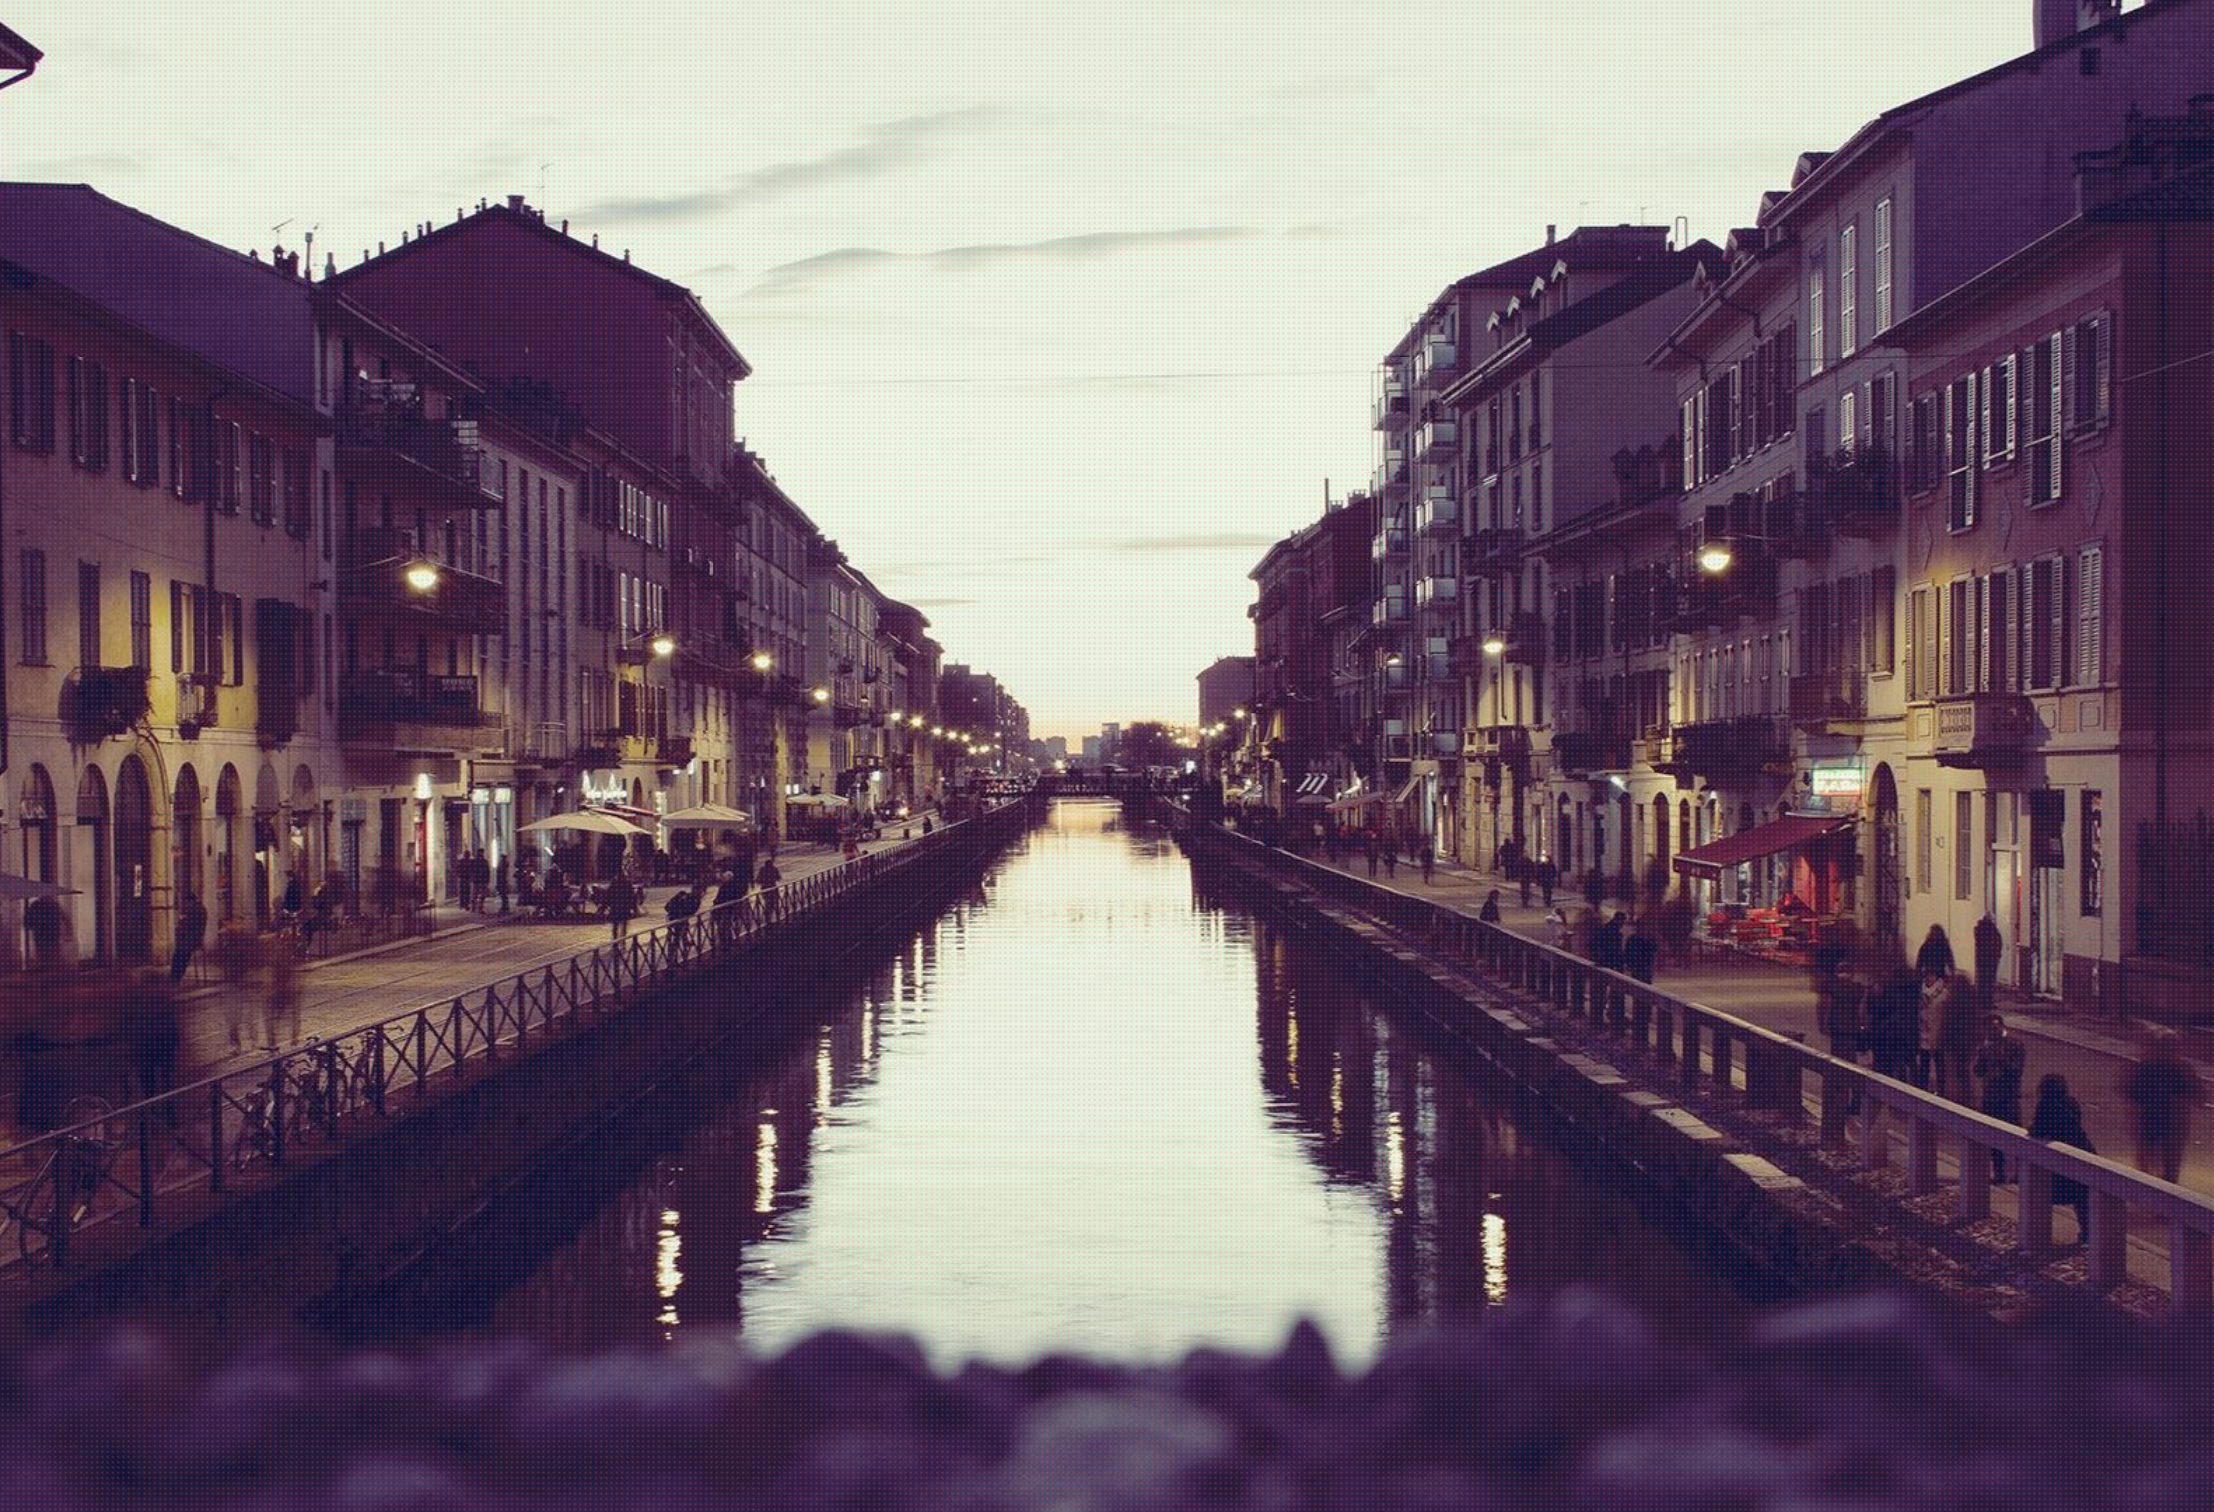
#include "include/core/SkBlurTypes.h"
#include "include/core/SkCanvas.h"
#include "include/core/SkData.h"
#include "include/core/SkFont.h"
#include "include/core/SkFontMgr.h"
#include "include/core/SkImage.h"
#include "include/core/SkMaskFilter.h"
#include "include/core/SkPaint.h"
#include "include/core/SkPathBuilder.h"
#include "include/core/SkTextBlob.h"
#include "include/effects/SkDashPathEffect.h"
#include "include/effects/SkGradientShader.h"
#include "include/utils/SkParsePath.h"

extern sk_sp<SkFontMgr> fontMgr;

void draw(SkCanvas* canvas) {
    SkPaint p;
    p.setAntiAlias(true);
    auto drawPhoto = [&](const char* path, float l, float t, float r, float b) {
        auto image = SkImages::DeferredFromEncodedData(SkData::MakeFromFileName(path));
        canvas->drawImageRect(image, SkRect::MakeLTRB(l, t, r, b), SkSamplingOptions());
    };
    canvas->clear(0xFFFFFFFF);
    drawPhoto("media/1.png", 0, 0, 2214, 1512);
    drawPhoto("media/2.png", 1, 1, 2214, 1511);
}
